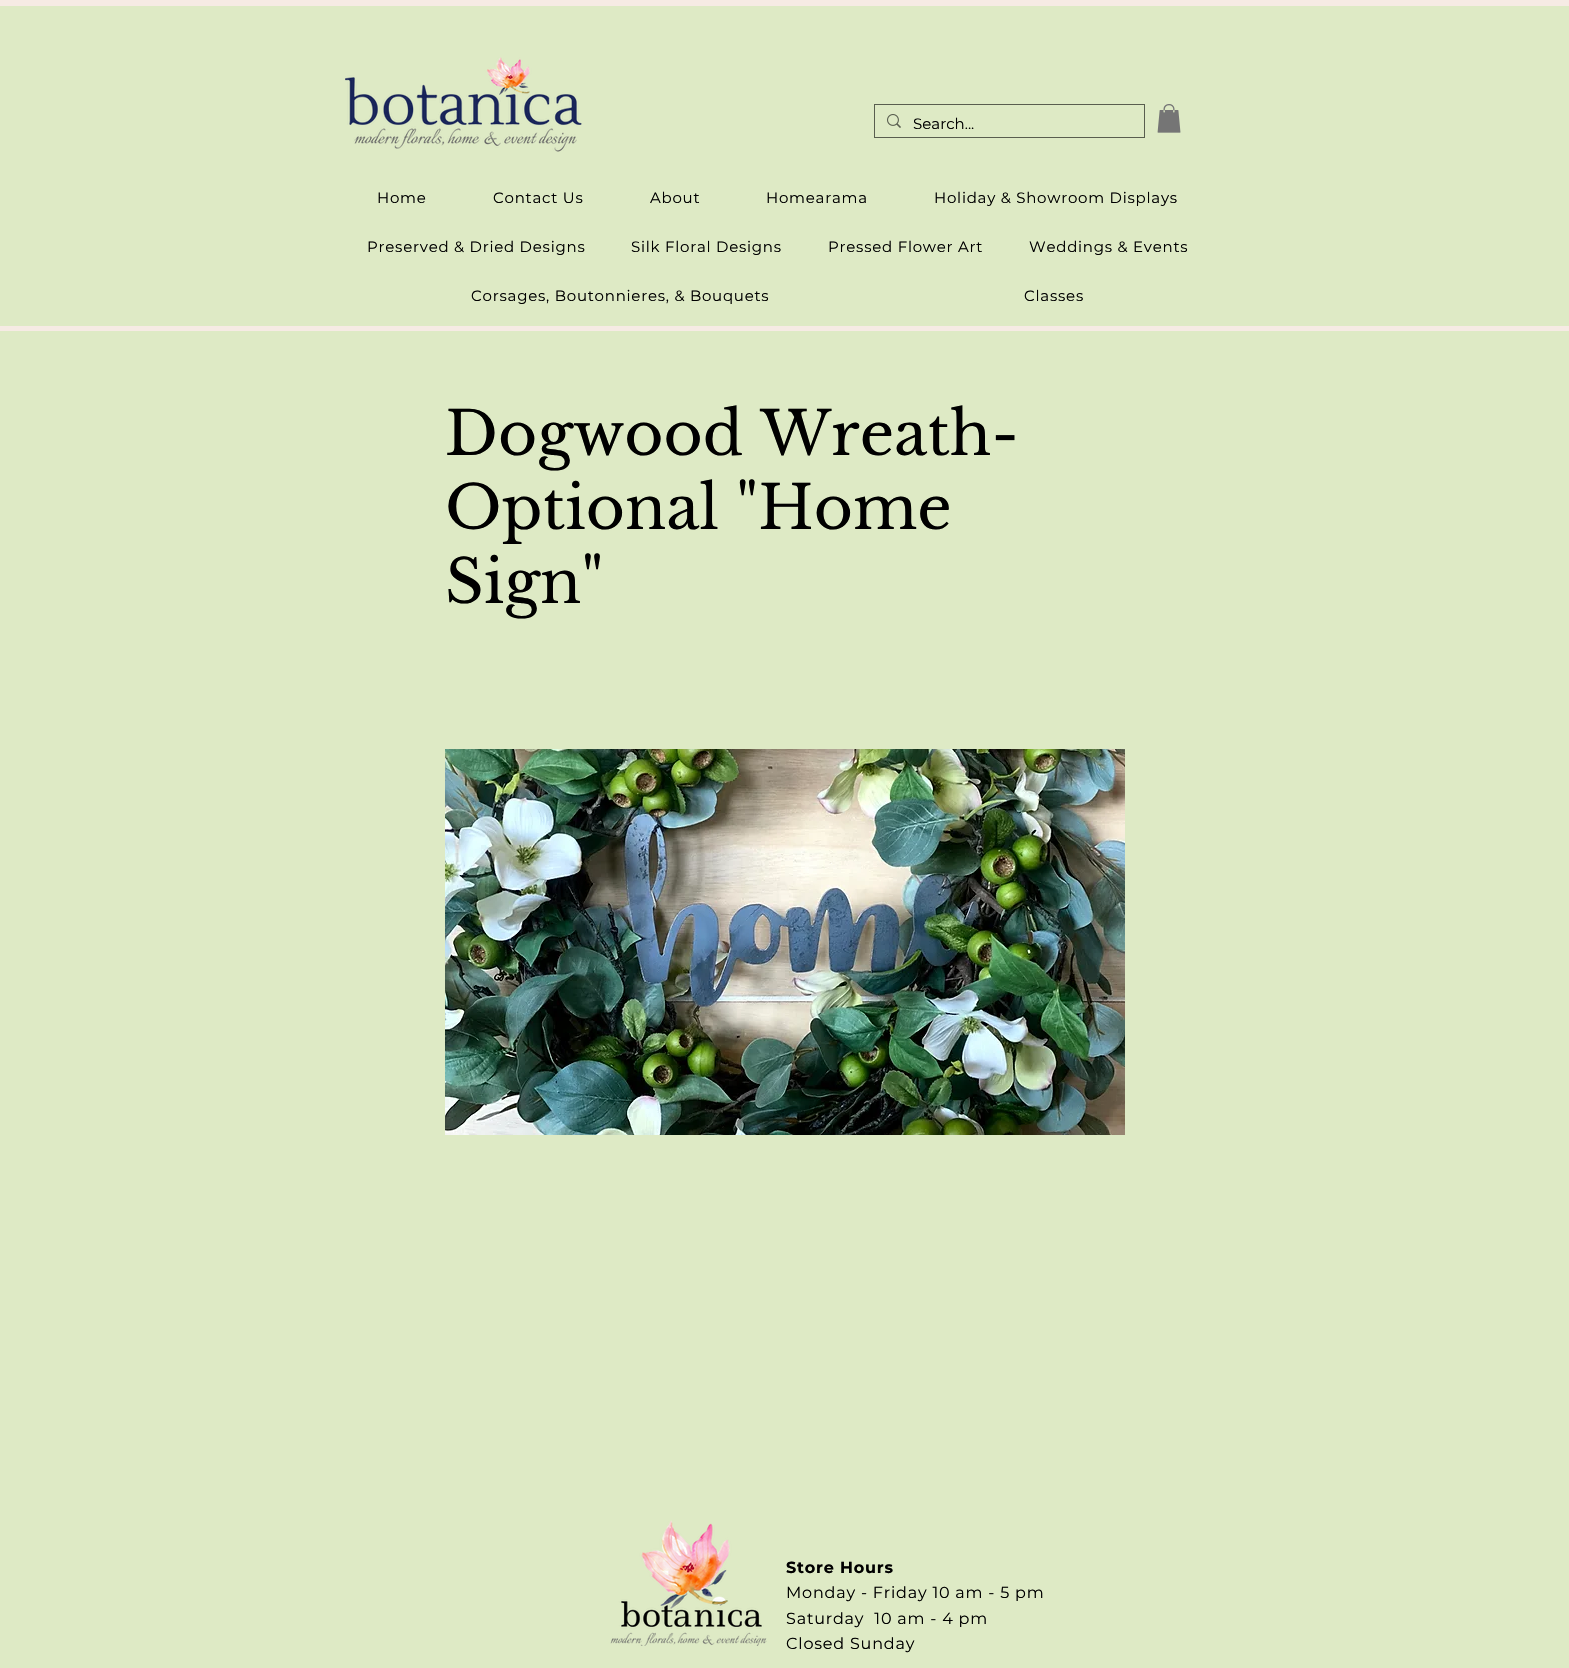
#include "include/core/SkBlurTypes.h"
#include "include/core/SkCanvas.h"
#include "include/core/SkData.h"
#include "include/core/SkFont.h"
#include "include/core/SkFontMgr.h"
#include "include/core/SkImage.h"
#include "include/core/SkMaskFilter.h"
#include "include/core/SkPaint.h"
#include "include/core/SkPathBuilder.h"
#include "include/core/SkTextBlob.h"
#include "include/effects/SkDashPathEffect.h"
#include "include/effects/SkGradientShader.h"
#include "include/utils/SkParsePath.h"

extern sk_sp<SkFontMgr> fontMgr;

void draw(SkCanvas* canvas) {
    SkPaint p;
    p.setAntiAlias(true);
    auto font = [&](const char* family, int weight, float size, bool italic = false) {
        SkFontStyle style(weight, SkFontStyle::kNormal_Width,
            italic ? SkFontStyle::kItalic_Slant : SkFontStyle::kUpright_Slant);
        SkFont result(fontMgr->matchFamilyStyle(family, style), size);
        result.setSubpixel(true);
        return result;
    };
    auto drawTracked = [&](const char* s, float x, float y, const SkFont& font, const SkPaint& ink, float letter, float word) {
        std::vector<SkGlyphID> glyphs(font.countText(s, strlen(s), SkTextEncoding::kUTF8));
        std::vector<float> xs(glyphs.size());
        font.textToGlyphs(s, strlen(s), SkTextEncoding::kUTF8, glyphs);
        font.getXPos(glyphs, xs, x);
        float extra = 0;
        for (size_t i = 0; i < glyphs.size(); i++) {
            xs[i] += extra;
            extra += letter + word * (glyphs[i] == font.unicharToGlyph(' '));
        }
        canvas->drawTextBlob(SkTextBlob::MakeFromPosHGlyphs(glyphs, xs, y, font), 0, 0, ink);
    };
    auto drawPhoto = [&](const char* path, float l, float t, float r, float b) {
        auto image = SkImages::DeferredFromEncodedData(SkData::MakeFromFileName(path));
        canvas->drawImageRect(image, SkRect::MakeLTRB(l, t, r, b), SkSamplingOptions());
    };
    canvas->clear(0xFFDEEAC5);
    p.setColor(0xFFF6EBE4);
    canvas->drawRect(SkRect::MakeLTRB(0, 0, 1569, 6), p);
    canvas->drawRect(SkRect::MakeLTRB(0, 326, 1569, 331), p);
    drawPhoto("media/1.png", 345, 57, 582, 152);
    p.setStyle(SkPaint::kStroke_Style);
    p.setStrokeWidth(1);
    p.setColor(0xFF595E4F);
    canvas->drawRect(SkRect::MakeLTRB(874.5f, 104.5f, 1144.5f, 137.5f), p);
    drawPhoto("media/2.png", 887, 114, 901, 128);
    auto font1 = font("Montserrat", 400, 15);
    p.setStyle(SkPaint::kFill_Style);
    p.setColor(0xFF000000);
    canvas->drawString("Search...", 913, 129, font1, p);
    drawPhoto("media/3.png", 1157, 104, 1181, 133);
    {
        const struct { const char* s; float x, y; } items[] = {
            {"Home", 377, 203},
            {"Contact Us", 493, 203},
            {"About", 650, 203},
            {"Homearama", 766, 203},
            {"Holiday & Showroom Displays", 934, 203},
            {"Preserved & Dried Designs", 367, 252},
            {"Silk Floral Designs", 631, 252},
            {"Pressed Flower Art", 828, 252},
            {"Weddings & Events", 1029, 252},
            {"Corsages, Boutonnieres, & Bouquets", 471, 301},
            {"Classes", 1024, 301},
        };
        for (auto [s, x, y] : items) {
            drawTracked(s, x, y, font1, p, 0.75f, 0);
        }
    }
    auto font2 = font("Libre Baskerville", 400, 60);
    {
        const struct { const char* s; float x, y; } items[] = {
            {"Dogwood Wreath-", 445, 455},
            {"Optional \"Home", 445, 529},
            {"Sign\"", 445, 603},
        };
        for (auto [s, x, y] : items) {
            canvas->drawString(s, x, y, font2, p);
        }
    }
    drawPhoto("media/4.png", 445, 749, 1125, 1135);
    drawPhoto("media/5.png", 610, 1520, 767, 1646);
    auto font3 = font("Montserrat", 700, 16);
    drawTracked("Store Hours", 786, 1573, font3, p, 0.8f, 0);
    auto font4 = font("Montserrat", 400, 16);
    {
        const struct { const char* s; float x, y; } items[] = {
            {"Monday - Friday 10 am - 5 pm", 786, 1598},
            {"Saturday  10 am - 4 pm", 786, 1624},
            {"Closed Sunday", 786, 1649},
        };
        for (auto [s, x, y] : items) {
            drawTracked(s, x, y, font4, p, 0.8f, 0);
        }
    }
}
